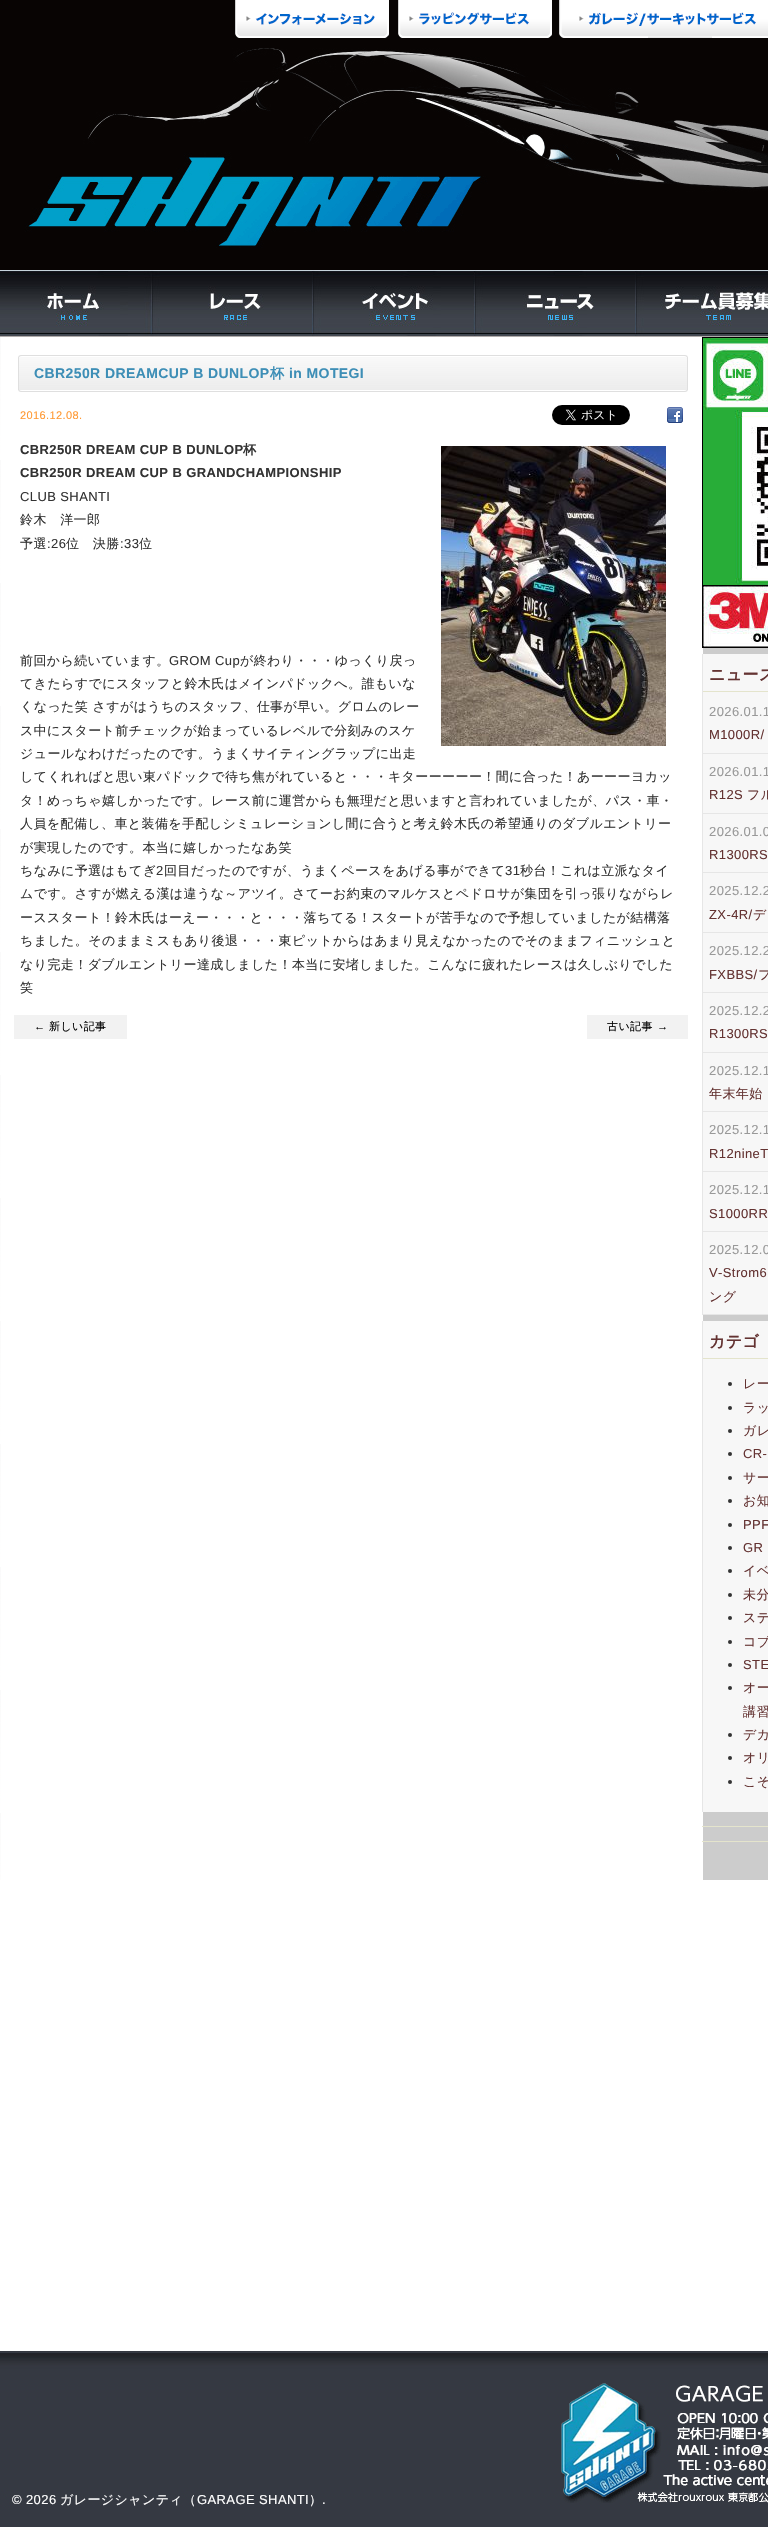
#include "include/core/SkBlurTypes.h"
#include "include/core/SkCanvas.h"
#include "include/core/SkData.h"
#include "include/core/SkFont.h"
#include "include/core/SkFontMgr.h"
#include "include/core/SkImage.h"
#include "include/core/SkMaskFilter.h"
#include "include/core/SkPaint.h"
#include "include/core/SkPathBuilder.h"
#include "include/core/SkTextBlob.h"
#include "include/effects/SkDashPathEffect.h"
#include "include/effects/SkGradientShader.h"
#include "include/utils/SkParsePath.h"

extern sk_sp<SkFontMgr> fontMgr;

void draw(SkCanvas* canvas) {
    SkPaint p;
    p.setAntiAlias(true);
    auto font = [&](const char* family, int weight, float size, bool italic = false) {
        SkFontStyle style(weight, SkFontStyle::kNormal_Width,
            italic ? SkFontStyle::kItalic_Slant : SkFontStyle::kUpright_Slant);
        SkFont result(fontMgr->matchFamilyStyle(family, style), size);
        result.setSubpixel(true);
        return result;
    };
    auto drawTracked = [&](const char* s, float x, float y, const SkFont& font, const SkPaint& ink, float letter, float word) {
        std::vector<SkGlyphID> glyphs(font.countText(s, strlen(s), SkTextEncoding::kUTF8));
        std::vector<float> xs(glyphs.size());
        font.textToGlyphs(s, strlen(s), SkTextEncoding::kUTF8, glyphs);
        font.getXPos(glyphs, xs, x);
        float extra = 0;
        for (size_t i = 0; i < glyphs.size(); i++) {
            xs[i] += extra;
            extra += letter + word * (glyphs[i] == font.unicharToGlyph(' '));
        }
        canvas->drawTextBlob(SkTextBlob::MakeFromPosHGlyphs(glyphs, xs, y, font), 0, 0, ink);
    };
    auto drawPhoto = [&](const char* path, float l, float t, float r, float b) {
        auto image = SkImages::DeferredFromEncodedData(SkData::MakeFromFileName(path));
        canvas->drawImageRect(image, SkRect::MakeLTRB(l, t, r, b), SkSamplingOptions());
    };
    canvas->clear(0xFFFFFFFF);
    drawPhoto("media/1.png", 0, 0, 768, 270);
    drawPhoto("media/2.png", 235, 0, 389, 38);
    drawPhoto("media/3.png", 398, 0, 552, 38);
    drawPhoto("media/4.png", 559, 0, 768, 38);
    drawPhoto("media/5.png", 0, 270, 152, 337);
    drawPhoto("media/6.png", 152, 270, 313, 337);
    drawPhoto("media/7.png", 313, 270, 475, 337);
    drawPhoto("media/8.png", 475, 270, 636, 337);
    drawPhoto("media/9.png", 636, 270, 768, 337);
    drawPhoto("media/10.png", 0, 337, 768, 1880);
    drawPhoto("media/11.png", 18, 355, 688, 392);
    auto font1 = font("Liberation Sans", 700, 14);
    p.setColor(0xFF3D8EB6);
    drawTracked("CBR250R DREAMCUP B DUNLOP", 34, 378, font1, p, 0.4f, 0);
    auto font2 = font("WenQuanYi Zen Hei", 700, 14);
    drawTracked("杯", 270, 378, font2, p, 0.4f, 0);
    drawTracked("in MOTEGI", 289, 378, font1, p, 0.4f, 0);
    auto font3 = font("Liberation Sans", 400, 11);
    p.setColor(0xFFFF9933);
    drawTracked("2016.12.08.", 20, 419, font3, p, 0.4f, 0);
    drawPhoto("media/12.png", 552, 405, 630, 425);
    drawPhoto("media/13.png", 667, 407, 683, 423);
    auto font4 = font("Liberation Sans", 700, 13);
    p.setColor(0xFF333333);
    drawTracked("CBR250R DREAM CUP B DUNLOP", 20, 454, font4, p, 0.4f, 0);
    auto font5 = font("WenQuanYi Zen Hei", 700, 13);
    drawTracked("杯", 243, 454, font5, p, 0.4f, 0);
    drawPhoto("media/14.png", 441, 446, 666, 746);
    drawTracked("CBR250R DREAM CUP B GRANDCHAMPIONSHIP", 20, 477, font4, p, 0.4f, 0);
    auto font6 = font("Liberation Sans", 400, 13);
    drawTracked("CLUB SHANTI", 20, 501, font6, p, 0.4f, 0);
    auto font7 = font("WenQuanYi Zen Hei", 500, 13);
    drawTracked("鈴木　洋一郎", 20, 524, font7, p, 0.4f, 0);
    drawTracked("予選", 20, 548, font7, p, 0.4f, 0);
    drawTracked(":26", 47, 548, font6, p, 0.4f, 0);
    drawTracked("位　決勝", 66, 548, font7, p, 0.4f, 0);
    drawTracked(":33", 120, 548, font6, p, 0.4f, 0);
    drawTracked("位", 139, 548, font7, p, 0.4f, 0);
    drawTracked("前回から続いています。", 20, 665, font7, p, 0.4f, 0);
    drawTracked("GROM Cup", 169, 665, font6, p, 0.4f, 0);
    {
        const struct { const char* s; float x, y; } items[] = {
            {"が終わり・・・ゆっくり戻っ", 240, 665},
            {"てきたらすでにスタッフと鈴木氏はメインパドックへ。誰もいな", 20, 688},
            {"くなった笑 さすがはうちのスタッフ、仕事が早い。グロムのレー", 20, 711},
            {"ス中にスタート前チェックが始まっているレベルで分刻みのスケ", 20, 735},
            {"ジュールなわけだったのです。うまくサイティングラップに出走", 20, 758},
            {"してくれればと思い東パドックで待ち焦がれていると・・・キターーーーー！間に合った！あーーーヨカッ", 20, 781},
            {"タ！めっちゃ嬉しかったです。レース前に運営からも無理だと思いますと言われていましたが、パス・車・", 20, 805},
            {"人員を配備し、車と装備を手配しシミュレーションし間に合うと考え鈴木氏の希望通りのダブルエントリー", 20, 828},
            {"が実現したのです。本当に嬉しかったなあ笑", 20, 852},
            {"ちなみに予選はもてぎ", 20, 875},
        };
        for (auto [s, x, y] : items) {
            drawTracked(s, x, y, font7, p, 0.4f, 0);
        }
    }
    drawTracked("2", 156, 875, font6, p, 0.4f, 0);
    drawTracked("回目だったのですが、うまくペースをあげる事ができて", 164, 875, font7, p, 0.4f, 0);
    drawTracked("31", 505, 875, font6, p, 0.4f, 0);
    {
        const struct { const char* s; float x, y; } items[] = {
            {"秒台！これは立派なタイ", 520, 875},
            {"ムです。さすが燃える漢は違うな～アツイ。さてーお約束のマルケスとペドロサが集団を引っ張りながらレ", 20, 898},
            {"ーススタート！鈴木氏はーえー・・・と・・・落ちてる！スタートが苦手なので予想していましたが結構落", 20, 922},
            {"ちました。そのままミスもあり後退・・・東ピットからはあまり見えなかったのでそのままフィニッシュと", 20, 945},
            {"なり完走！ダブルエントリー達成しました！本当に安堵しました。こんなに疲れたレースは久しぶりでした", 20, 969},
            {"笑", 20, 992},
        };
        for (auto [s, x, y] : items) {
            drawTracked(s, x, y, font7, p, 0.4f, 0);
        }
    }
    p.setColor(0xFFF2F2F2);
    canvas->drawRect(SkRect::MakeLTRB(14, 1015, 127, 1039), p);
    p.setColor(0xFF000000);
    drawTracked("←", 34, 1030, font3, p, 0.4f, 0);
    auto font8 = font("WenQuanYi Zen Hei", 500, 11);
    drawTracked("新しい記事", 49, 1030, font8, p, 0.4f, 0);
    p.setColor(0xFFF2F2F2);
    canvas->drawRect(SkRect::MakeLTRB(587, 1015, 688, 1039), p);
    p.setColor(0xFF000000);
    drawTracked("古い記事", 607, 1030, font8, p, 0.4f, 0);
    drawTracked("→", 657, 1030, font3, p, 0.4f, 0);
    {
        const struct { float l, t, r, b; SkColor color; } items[] = {
            {702, 337, 768, 338, 0xFF010000},
            {702, 337, 703, 648, 0xFF010000},
            {703, 585, 768, 586, 0xFF010000},
        };
        for (auto [l, t, r, b, color] : items) {
            p.setColor(color);
            canvas->drawRect(SkRect::MakeLTRB(l, t, r, b), p);
        }
    }
    drawPhoto("media/15.png", 703, 338, 768, 585);
    canvas->drawRect(SkRect::MakeLTRB(703, 647, 768, 648), p);
    drawPhoto("media/16.png", 703, 586, 768, 647);
    {
        const struct { float l, t, r, b; SkColor color; } items[] = {
            {703, 654, 768, 1314, 0xFFF7F7F7},
            {702, 654, 703, 1315, 0xFFE6E6E6},
            {703, 691, 768, 692, 0xFFE4E4CC},
        };
        for (auto [l, t, r, b, color] : items) {
            p.setColor(color);
            canvas->drawRect(SkRect::MakeLTRB(l, t, r, b), p);
        }
    }
    auto font9 = font("WenQuanYi Zen Hei", 700, 16);
    p.setColor(0xFF643332);
    drawTracked("ニュース", 709, 680, font9, p, 0.4f, 0);
    p.setColor(0xFF999999);
    drawTracked("2026.01.1", 709, 716, font6, p, 0.4f, 0);
    p.setColor(0xFFE6E6E6);
    canvas->drawRect(SkRect::MakeLTRB(703, 753, 768, 754), p);
    p.setColor(0xFF643332);
    drawTracked("M1000R/", 709, 739, font6, p, 0.4f, 0);
    p.setColor(0xFF999999);
    drawTracked("2026.01.1", 709, 776, font6, p, 0.4f, 0);
    p.setColor(0xFFE6E6E6);
    canvas->drawRect(SkRect::MakeLTRB(703, 813, 768, 814), p);
    p.setColor(0xFF643332);
    drawTracked("R12S", 709, 799, font6, p, 0.4f, 0);
    drawTracked("フル", 747, 799, font7, p, 0.4f, 0);
    p.setColor(0xFF999999);
    drawTracked("2026.01.0", 709, 836, font6, p, 0.4f, 0);
    p.setColor(0xFFE6E6E6);
    canvas->drawRect(SkRect::MakeLTRB(703, 872, 768, 873), p);
    p.setColor(0xFF643332);
    drawTracked("R1300RS", 709, 859, font6, p, 0.4f, 0);
    p.setColor(0xFF999999);
    drawTracked("2025.12.2", 709, 895, font6, p, 0.4f, 0);
    p.setColor(0xFFE6E6E6);
    canvas->drawRect(SkRect::MakeLTRB(703, 932, 768, 933), p);
    p.setColor(0xFF643332);
    drawTracked("ZX-4R/", 709, 919, font6, p, 0.4f, 0);
    drawTracked("デ", 753, 919, font7, p, 0.4f, 0);
    p.setColor(0xFF999999);
    drawTracked("2025.12.2", 709, 955, font6, p, 0.4f, 0);
    p.setColor(0xFFE6E6E6);
    canvas->drawRect(SkRect::MakeLTRB(703, 992, 768, 993), p);
    p.setColor(0xFF643332);
    drawTracked("FXBBS/", 709, 979, font6, p, 0.4f, 0);
    drawTracked("フ", 758, 979, font7, p, 0.4f, 0);
    p.setColor(0xFF999999);
    drawTracked("2025.12.2", 709, 1015, font6, p, 0.4f, 0);
    p.setColor(0xFFE6E6E6);
    canvas->drawRect(SkRect::MakeLTRB(703, 1052, 768, 1053), p);
    p.setColor(0xFF643332);
    drawTracked("R1300RS", 709, 1038, font6, p, 0.4f, 0);
    p.setColor(0xFF999999);
    drawTracked("2025.12.1", 709, 1075, font6, p, 0.4f, 0);
    p.setColor(0xFFE6E6E6);
    canvas->drawRect(SkRect::MakeLTRB(703, 1111, 768, 1112), p);
    p.setColor(0xFF643332);
    drawTracked("年末年始", 709, 1098, font7, p, 0.4f, 0);
    p.setColor(0xFF999999);
    drawTracked("2025.12.1", 709, 1134, font6, p, 0.4f, 0);
    p.setColor(0xFFE6E6E6);
    canvas->drawRect(SkRect::MakeLTRB(703, 1171, 768, 1172), p);
    p.setColor(0xFF643332);
    drawTracked("R12nineT", 709, 1158, font6, p, 0.4f, 0);
    p.setColor(0xFF999999);
    drawTracked("2025.12.1", 709, 1194, font6, p, 0.4f, 0);
    p.setColor(0xFFE6E6E6);
    canvas->drawRect(SkRect::MakeLTRB(703, 1231, 768, 1232), p);
    p.setColor(0xFF643332);
    drawTracked("S1000RR", 709, 1218, font6, p, 0.4f, 0);
    p.setColor(0xFF999999);
    drawTracked("2025.12.0", 709, 1254, font6, p, 0.4f, 0);
    p.setColor(0xFFE6E6E6);
    canvas->drawRect(SkRect::MakeLTRB(703, 1314, 768, 1315), p);
    p.setColor(0xFF643332);
    drawTracked("V-Strom6", 709, 1277, font6, p, 0.4f, 0);
    drawTracked("ング", 709, 1301, font7, p, 0.4f, 0);
    {
        const struct { float l, t, r, b; SkColor color; } items[] = {
            {703, 1321, 768, 1812, 0xFFF7F7F7},
            {702, 1321, 703, 1812, 0xFFE6E6E6},
            {703, 1358, 768, 1359, 0xFFE4E4CC},
        };
        for (auto [l, t, r, b, color] : items) {
            p.setColor(color);
            canvas->drawRect(SkRect::MakeLTRB(l, t, r, b), p);
        }
    }
    p.setColor(0xFF643332);
    drawTracked("カテゴ", 709, 1347, font9, p, 0.4f, 0);
    p.setColor(0xFF333333);
    canvas->drawCircle(730, 1384, 2, p);
    p.setColor(0xFF643332);
    drawTracked("レー", 743, 1388, font7, p, 0.4f, 0);
    p.setColor(0xFF333333);
    canvas->drawCircle(730, 1408, 2, p);
    p.setColor(0xFF643332);
    drawTracked("ラッ", 743, 1412, font7, p, 0.4f, 0);
    p.setColor(0xFF333333);
    canvas->drawCircle(730, 1431, 2, p);
    p.setColor(0xFF643332);
    drawTracked("ガレ", 743, 1435, font7, p, 0.4f, 0);
    p.setColor(0xFF333333);
    canvas->drawCircle(730, 1454, 2, p);
    p.setColor(0xFF643332);
    drawTracked("CR-", 743, 1458, font6, p, 0.4f, 0);
    p.setColor(0xFF333333);
    canvas->drawCircle(730, 1478, 2, p);
    p.setColor(0xFF643332);
    drawTracked("サー", 743, 1482, font7, p, 0.4f, 0);
    p.setColor(0xFF333333);
    canvas->drawCircle(730, 1501, 2, p);
    p.setColor(0xFF643332);
    drawTracked("お知", 743, 1505, font7, p, 0.4f, 0);
    p.setColor(0xFF333333);
    canvas->drawCircle(730, 1525, 2, p);
    p.setColor(0xFF643332);
    drawTracked("PPF", 743, 1529, font6, p, 0.4f, 0);
    p.setColor(0xFF333333);
    canvas->drawCircle(730, 1548, 2, p);
    p.setColor(0xFF643332);
    drawTracked("GR", 743, 1552, font6, p, 0.4f, 0);
    p.setColor(0xFF333333);
    canvas->drawCircle(730, 1571, 2, p);
    p.setColor(0xFF643332);
    drawTracked("イベ", 743, 1575, font7, p, 0.4f, 0);
    p.setColor(0xFF333333);
    canvas->drawCircle(730, 1595, 2, p);
    p.setColor(0xFF643332);
    drawTracked("未分", 743, 1599, font7, p, 0.4f, 0);
    p.setColor(0xFF333333);
    canvas->drawCircle(730, 1618, 2, p);
    p.setColor(0xFF643332);
    drawTracked("ステ", 743, 1622, font7, p, 0.4f, 0);
    p.setColor(0xFF333333);
    canvas->drawCircle(730, 1642, 2, p);
    p.setColor(0xFF643332);
    drawTracked("コブ", 743, 1646, font7, p, 0.4f, 0);
    p.setColor(0xFF333333);
    canvas->drawCircle(730, 1665, 2, p);
    p.setColor(0xFF643332);
    drawTracked("STE", 743, 1669, font6, p, 0.4f, 0);
    p.setColor(0xFF333333);
    canvas->drawCircle(730, 1688, 2, p);
    p.setColor(0xFF643332);
    drawTracked("オー", 743, 1692, font7, p, 0.4f, 0);
    drawTracked("講習", 743, 1716, font7, p, 0.4f, 0);
    p.setColor(0xFF333333);
    canvas->drawCircle(730, 1735, 2, p);
    p.setColor(0xFF643332);
    drawTracked("デカ", 743, 1739, font7, p, 0.4f, 0);
    p.setColor(0xFF333333);
    canvas->drawCircle(730, 1758, 2, p);
    p.setColor(0xFF643332);
    drawTracked("オリ", 743, 1762, font7, p, 0.4f, 0);
    p.setColor(0xFF333333);
    canvas->drawCircle(730, 1782, 2, p);
    p.setColor(0xFF643332);
    drawTracked("こそ", 743, 1786, font7, p, 0.4f, 0);
    p.setColor(0xFFE4E4CC);
    canvas->drawRect(SkRect::MakeLTRB(702, 1826, 768, 1827), p);
    canvas->drawRect(SkRect::MakeLTRB(702, 1841, 768, 1842), p);
    drawPhoto("media/17.png", 0, 2351, 768, 2527);
    p.setColor(0xFFFFFFFF);
    drawTracked("© 2026", 12, 2504, font6, p, 0.4f, 0);
    drawTracked("ガレージシャンティ（", 60, 2504, font7, p, 0.4f, 0);
    drawTracked("GARAGE SHANTI", 197, 2504, font6, p, 0.4f, 0);
    drawTracked("）", 309, 2504, font7, p, 0.4f, 0);
    drawTracked(".", 322, 2504, font6, p, 0.4f, 0);
    drawPhoto("media/18.png", 561, 2383, 768, 2503);
}
